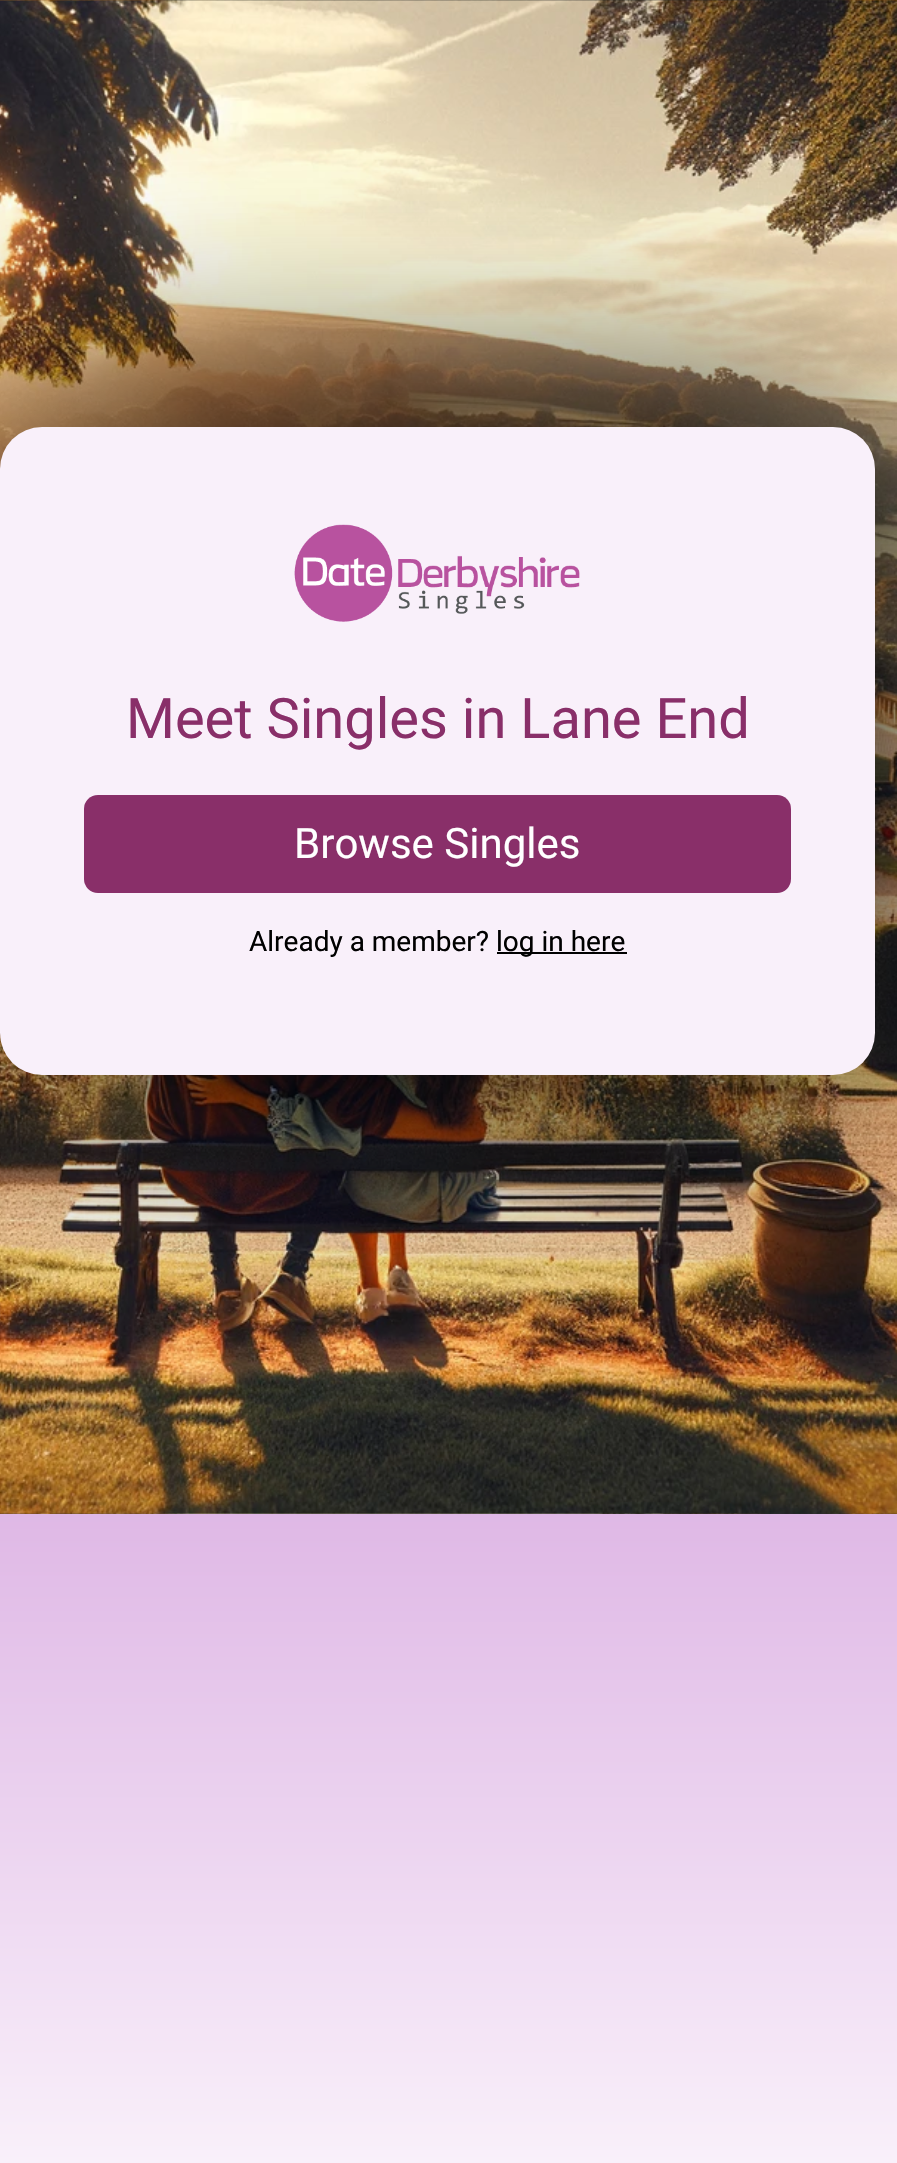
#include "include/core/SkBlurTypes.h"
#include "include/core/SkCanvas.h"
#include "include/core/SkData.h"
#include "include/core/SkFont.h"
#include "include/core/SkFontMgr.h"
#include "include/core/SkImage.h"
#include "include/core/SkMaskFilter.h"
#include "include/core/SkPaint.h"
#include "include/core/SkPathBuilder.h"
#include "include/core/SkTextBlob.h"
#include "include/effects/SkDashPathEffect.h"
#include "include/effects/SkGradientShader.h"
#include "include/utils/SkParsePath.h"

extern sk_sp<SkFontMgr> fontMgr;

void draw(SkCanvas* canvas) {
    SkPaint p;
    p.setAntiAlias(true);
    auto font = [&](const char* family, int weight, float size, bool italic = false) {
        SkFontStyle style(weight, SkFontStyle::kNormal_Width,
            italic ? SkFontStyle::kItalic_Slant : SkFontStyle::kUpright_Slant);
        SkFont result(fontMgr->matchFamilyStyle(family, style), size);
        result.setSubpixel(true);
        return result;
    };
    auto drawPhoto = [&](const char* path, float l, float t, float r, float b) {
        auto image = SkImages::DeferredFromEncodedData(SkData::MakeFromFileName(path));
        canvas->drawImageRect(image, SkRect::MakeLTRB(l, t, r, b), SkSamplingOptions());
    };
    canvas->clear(0xFFFFFFFF);
    {
        const SkColor colors[] = {0xFF892F69, 0xFFCE93D8, 0xFFF9F0FA};
        const float stops[] = {0, 0.5f, 1};
        const SkPoint ends[] = {{449, 0}, {449, 2163}};
        p.setShader(SkGradientShader::MakeLinear(ends, colors, stops, 3, SkTileMode::kClamp));
        p.setAlpha(255);
    }
    canvas->drawRect(SkRect::MakeLTRB(0, 1513, 897, 2163), p);
    drawPhoto("media/1.png", 0, 0, 897, 1514);
    p.setShader(nullptr);
    p.setColor(0xFF000000);
    p.setMaskFilter(SkMaskFilter::MakeBlur(kNormal_SkBlurStyle, 140));
    canvas->drawRoundRect(SkRect::MakeLTRB(0, 427, 875, 1075), 42, 42, p);
    p.setMaskFilter(nullptr);
    p.setColor(0xFFF9F0FA);
    canvas->drawRoundRect(SkRect::MakeLTRB(0, 427, 875, 1075), 42, 42, p);
    drawPhoto("media/2.png", 294, 524, 580, 622);
    auto font1 = font("Roboto", 400, 56);
    p.setColor(0xFF892F69);
    canvas->drawString("Meet Singles in Lane End", 126, 738, font1, p);
    canvas->drawRoundRect(SkRect::MakeLTRB(84, 795, 791, 893), 14, 14, p);
    auto font2 = font("Roboto", 400, 42);
    p.setColor(0xFFFFFFFF);
    canvas->drawString("Browse Singles", 294, 858, font2, p);
    auto font3 = font("Roboto", 400, 28);
    p.setColor(0xFF000000);
    canvas->drawString("Already a member?", 249, 951, font3, p);
    canvas->drawRect(SkRect::MakeLTRB(497, 952, 627, 954), p);
    canvas->drawString("log in here", 496, 951, font3, p);
    drawPhoto("media/3.png", 0, 1513, 897, 1514);
    drawPhoto("media/4.png", 0, 1513, 897, 1514);
}
